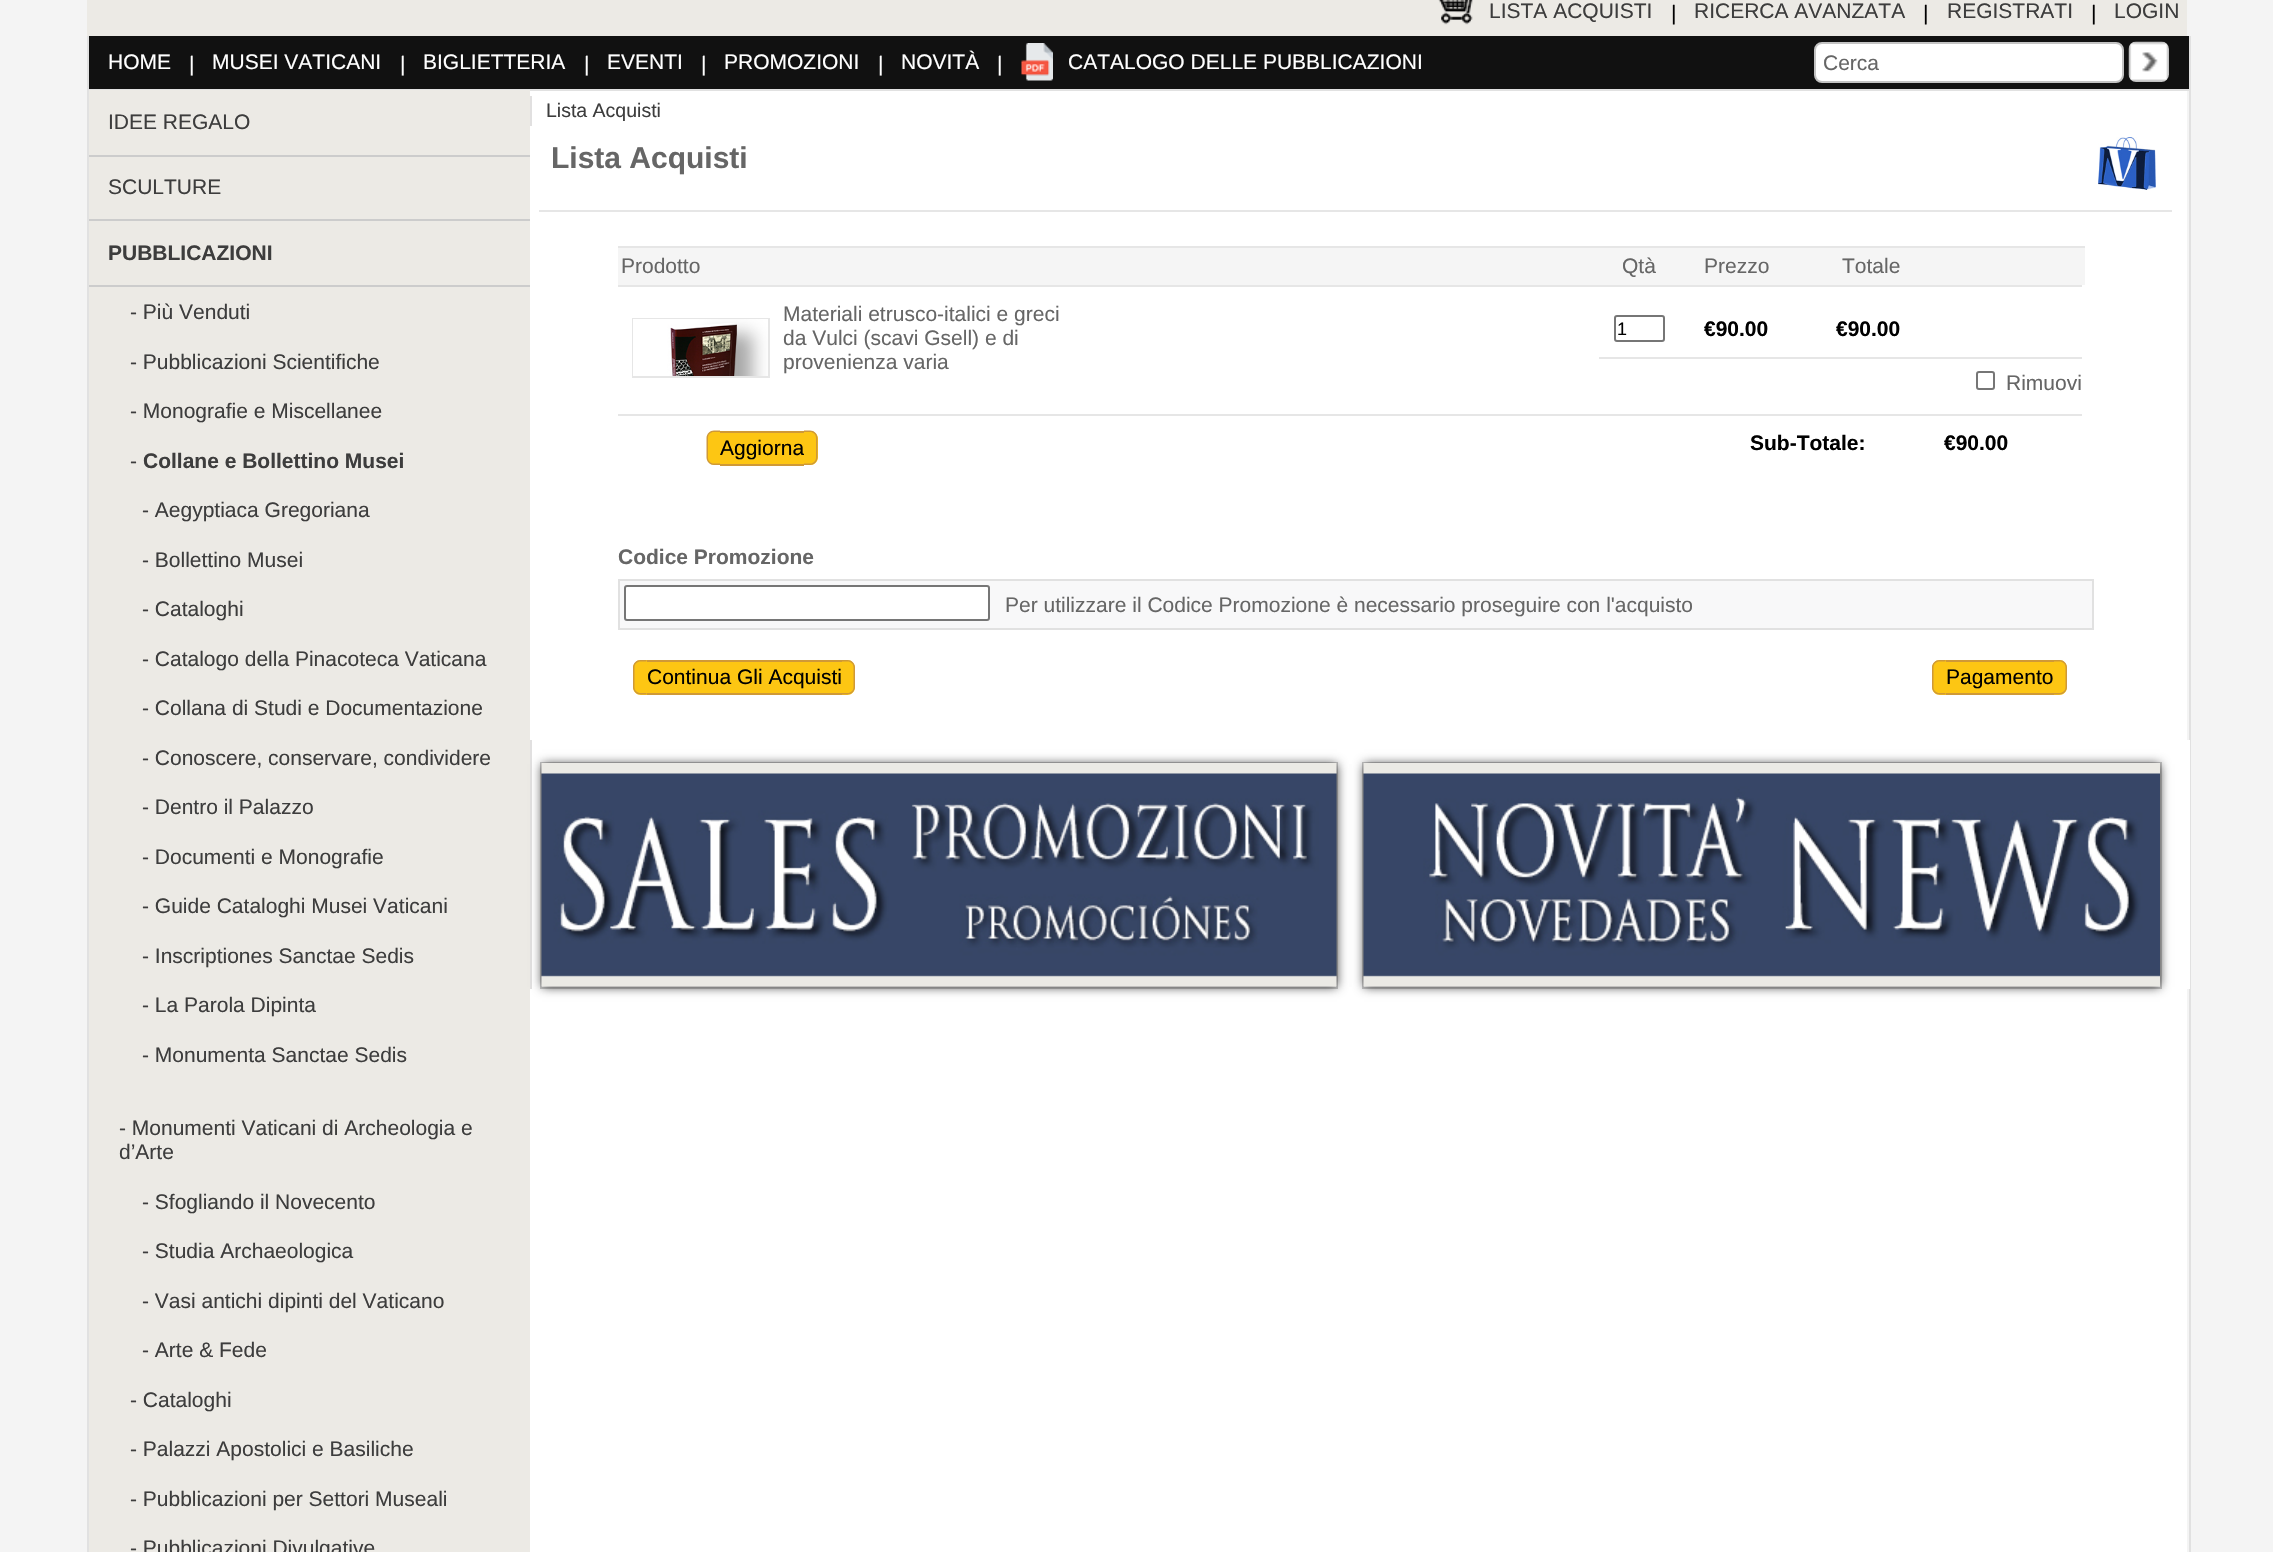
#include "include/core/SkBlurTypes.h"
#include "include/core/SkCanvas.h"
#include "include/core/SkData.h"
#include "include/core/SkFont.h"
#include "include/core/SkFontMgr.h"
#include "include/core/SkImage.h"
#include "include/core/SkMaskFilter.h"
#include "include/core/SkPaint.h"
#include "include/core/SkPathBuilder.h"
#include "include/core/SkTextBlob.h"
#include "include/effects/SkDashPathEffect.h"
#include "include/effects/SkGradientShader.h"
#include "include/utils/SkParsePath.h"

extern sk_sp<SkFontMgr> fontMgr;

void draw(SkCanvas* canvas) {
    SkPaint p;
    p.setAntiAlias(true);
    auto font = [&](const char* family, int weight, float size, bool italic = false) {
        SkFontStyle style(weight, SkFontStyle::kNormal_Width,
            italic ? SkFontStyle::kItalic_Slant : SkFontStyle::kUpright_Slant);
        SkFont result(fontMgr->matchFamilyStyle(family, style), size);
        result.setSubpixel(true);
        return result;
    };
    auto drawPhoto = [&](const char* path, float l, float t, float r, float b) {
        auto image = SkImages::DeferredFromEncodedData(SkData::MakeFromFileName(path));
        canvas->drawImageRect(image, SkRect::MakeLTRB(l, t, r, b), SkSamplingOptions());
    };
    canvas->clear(0xFFF4F4F4);
    p.setColor(0xFFFFFFFF);
    canvas->drawRect(SkRect::MakeLTRB(530, 91, 2187, 1552), p);
    p.setColor(0xFFECEAE5);
    canvas->drawRect(SkRect::MakeLTRB(87, 0, 2187, 36), p);
    drawPhoto("media/1.png", 1438, 0, 1473, 25);
    auto font1 = font("Liberation Sans", 400, 21);
    p.setColor(0xFF3D3D3D);
    canvas->drawString("LISTA ACQUISTI", 1489, 18, font1, p);
    p.setColor(0xFF000000);
    canvas->drawString("|", 1671, 20, font1, p);
    p.setColor(0xFF3D3D3D);
    canvas->drawString("RICERCA AVANZATA", 1694, 18, font1, p);
    p.setColor(0xFF000000);
    canvas->drawString("|", 1923, 20, font1, p);
    p.setColor(0xFF3D3D3D);
    canvas->drawString("REGISTRATI", 1947, 18, font1, p);
    p.setColor(0xFF000000);
    canvas->drawString("|", 2091, 20, font1, p);
    p.setColor(0xFF3D3D3D);
    canvas->drawString("LOGIN", 2114, 18, font1, p);
    {
        const struct { float l, t, r, b; SkColor color; } items[] = {
            {89, 36, 2189, 89, 0xFF111111},
            {2189, 36, 2191, 90, 0xFFE1E1E1},
            {87, 89, 2190, 91, 0xFFE1E1E1},
            {87, 36, 89, 1552, 0xFFE1E1E1},
        };
        for (auto [l, t, r, b, color] : items) {
            p.setColor(color);
            canvas->drawRect(SkRect::MakeLTRB(l, t, r, b), p);
        }
    }
    p.setColor(0xFFFFFFFF);
    {
        const struct { const char* s; float x, y; } items[] = {
            {"HOME", 108, 69},
            {"|", 189, 71},
            {"MUSEI VATICANI", 212, 69},
            {"|", 400, 71},
            {"BIGLIETTERIA", 423, 69},
            {"|", 584, 71},
            {"EVENTI", 607, 69},
            {"|", 701, 71},
            {"PROMOZIONI", 724, 69},
            {"|", 878, 71},
            {"NOVITÀ", 901, 69},
            {"|", 997, 71},
        };
        for (auto [s, x, y] : items) {
            canvas->drawString(s, x, y, font1, p);
        }
    }
    drawPhoto("media/2.png", 1021, 43, 1053, 81);
    canvas->drawString("CATALOGO DELLE PUBBLICAZIONI", 1068, 69, font1, p);
    canvas->drawRoundRect(SkRect::MakeLTRB(1815, 43, 2123, 82), 7, 7, p);
    p.setStyle(SkPaint::kStroke_Style);
    p.setStrokeWidth(2);
    p.setColor(0xFFC3C3C3);
    canvas->drawRoundRect(SkRect::MakeLTRB(1815, 43, 2123, 82), 7, 7, p);
    p.setStyle(SkPaint::kFill_Style);
    p.setColor(0xFF666666);
    canvas->drawString("Cerca", 1823, 70, font1, p);
    drawPhoto("media/3.png", 2128, 41, 2169, 82);
    {
        const struct { float l, t, r, b; SkColor color; } items[] = {
            {2189, 90, 2191, 1552, 0xFFE1E1E1},
            {89, 90, 530, 1552, 0xFFECEAE5},
            {89, 155, 530, 157, 0xFFCCCCCC},
        };
        for (auto [l, t, r, b, color] : items) {
            p.setColor(color);
            canvas->drawRect(SkRect::MakeLTRB(l, t, r, b), p);
        }
    }
    p.setColor(0xFF3D3D3D);
    canvas->drawString("IDEE REGALO", 108, 129, font1, p);
    p.setColor(0xFFCCCCCC);
    canvas->drawRect(SkRect::MakeLTRB(89, 219, 530, 221), p);
    p.setColor(0xFF3D3D3D);
    canvas->drawString("SCULTURE", 108, 194, font1, p);
    p.setColor(0xFFCCCCCC);
    canvas->drawRect(SkRect::MakeLTRB(89, 285, 530, 287), p);
    auto font2 = font("Liberation Sans", 700, 21);
    p.setColor(0xFF3D3D3D);
    canvas->drawString("PUBBLICAZIONI", 108, 260, font2, p);
    {
        const struct { const char* s; float x, y; } items[] = {
            {"- Più Venduti", 130, 319},
            {"- Pubblicazioni Scientifiche", 130, 369},
            {"- Monografie e Miscellanee", 130, 418},
            {"-", 130, 468},
        };
        for (auto [s, x, y] : items) {
            canvas->drawString(s, x, y, font1, p);
        }
    }
    canvas->drawString("Collane e Bollettino Musei", 143, 468, font2, p);
    {
        const struct { const char* s; float x, y; } items[] = {
            {"- Aegyptiaca Gregoriana", 142, 517},
            {"- Bollettino Musei", 142, 567},
            {"- Cataloghi", 142, 616},
            {"- Catalogo della Pinacoteca Vaticana", 142, 666},
            {"- Collana di Studi e Documentazione", 142, 715},
            {"- Conoscere, conservare, condividere", 142, 765},
            {"- Dentro il Palazzo", 142, 814},
            {"- Documenti e Monografie", 142, 864},
            {"- Guide Cataloghi Musei Vaticani", 142, 913},
            {"- Inscriptiones Sanctae Sedis", 142, 963},
            {"- La Parola Dipinta", 142, 1012},
            {"- Monumenta Sanctae Sedis", 142, 1062},
            {"- Monumenti Vaticani di Archeologia e", 119, 1135},
            {"d’Arte", 119, 1159},
            {"- Sfogliando il Novecento", 142, 1209},
            {"- Studia Archaeologica", 142, 1258},
            {"- Vasi antichi dipinti del Vaticano", 142, 1308},
            {"- Arte & Fede", 142, 1357},
            {"- Cataloghi", 130, 1407},
            {"- Palazzi Apostolici e Basiliche", 130, 1456},
            {"- Pubblicazioni per Settori Museali", 130, 1506},
            {"- Pubblicazioni Divulgative", 130, 1555},
        };
        for (auto [s, x, y] : items) {
            canvas->drawString(s, x, y, font1, p);
        }
    }
    p.setColor(0xFFE1E0E0);
    canvas->drawRect(SkRect::MakeLTRB(530, 96, 532, 126), p);
    auto font3 = font("Liberation Sans", 400, 19.5f);
    p.setColor(0xFF3D3D3D);
    canvas->drawString("Lista Acquisti", 546, 117, font3, p);
    p.setColor(0xFFE6E6E6);
    canvas->drawRect(SkRect::MakeLTRB(539, 210, 2172, 212), p);
    auto font4 = font("Liberation Sans", 700, 30);
    p.setColor(0xFF666666);
    canvas->drawString("Lista Acquisti", 551, 168, font4, p);
    drawPhoto("media/4.png", 2098, 137, 2156, 190);
    p.setColor(0xFFF5F5F5);
    canvas->drawRect(SkRect::MakeLTRB(618, 248, 2085, 285), p);
    p.setColor(0xFFE6E6E6);
    canvas->drawRect(SkRect::MakeLTRB(618, 246, 2085, 248), p);
    p.setColor(0xFF666666);
    {
        const struct { const char* s; float x, y; } items[] = {
            {"Prodotto", 621, 273},
            {"Qtà", 1622, 273},
            {"Prezzo", 1704, 273},
            {"Totale", 1842, 273},
        };
        for (auto [s, x, y] : items) {
            canvas->drawString(s, x, y, font1, p);
        }
    }
    p.setColor(0xFFE6E6E6);
    canvas->drawRect(SkRect::MakeLTRB(618, 285, 2082, 287), p);
    canvas->drawRect(SkRect::MakeLTRB(618, 414, 2082, 416), p);
    p.setStyle(SkPaint::kStroke_Style);
    canvas->drawRect(SkRect::MakeLTRB(633, 319, 769, 377), p);
    drawPhoto("media/5.png", 633, 319, 768, 376);
    p.setStyle(SkPaint::kFill_Style);
    p.setColor(0xFF666666);
    {
        const struct { const char* s; float x, y; } items[] = {
            {"Materiali etrusco-italici e greci", 783, 321},
            {"da Vulci (scavi Gsell) e di", 783, 345},
            {"provenienza varia", 783, 369},
        };
        for (auto [s, x, y] : items) {
            canvas->drawString(s, x, y, font1, p);
        }
    }
    p.setColor(0xFFE6E6E6);
    canvas->drawRect(SkRect::MakeLTRB(1599, 357, 2082, 359), p);
    p.setStyle(SkPaint::kStroke_Style);
    p.setColor(0xFF767676);
    canvas->drawRoundRect(SkRect::MakeLTRB(1615, 316, 1664, 341), 2, 2, p);
    auto font5 = font("Liberation Sans", 400, 18);
    p.setStyle(SkPaint::kFill_Style);
    p.setColor(0xFF000000);
    canvas->drawString("1", 1617, 335, font5, p);
    canvas->drawString("€90.00", 1704, 336, font2, p);
    canvas->drawString("€90.00", 1836, 336, font2, p);
    p.setStyle(SkPaint::kStroke_Style);
    p.setColor(0xFF767676);
    canvas->drawRoundRect(SkRect::MakeLTRB(1977, 372, 1994, 389), 2, 2, p);
    p.setStyle(SkPaint::kFill_Style);
    p.setColor(0xFF666666);
    canvas->drawString("Rimuovi", 2006, 390, font1, p);
    p.setColor(0xFFFDC613);
    canvas->drawPath(SkPathBuilder().moveTo(715, 431).lineTo(720, 431).lineTo(720, 465).lineTo(715, 465).cubicTo(710.5f, 465, 707, 461.5f, 707, 457).lineTo(707, 439).cubicTo(707, 434.5f, 710.5f, 431, 715, 431).close().detach(), p);
    p.setColor(0xFFCF9937);
    canvas->drawPath(SkPathBuilder(SkPathFillType::kEvenOdd).moveTo(714, 430.5f).lineTo(720, 430.5f).lineTo(720, 465).lineTo(714, 465).cubicTo(710, 465, 706.5f, 461.5f, 706.5f, 457.5f).lineTo(706.5f, 438).cubicTo(706.5f, 434, 710, 430.5f, 714, 430.5f).close().moveTo(714, 432).lineTo(720, 432).lineTo(720, 463.5f).lineTo(714, 463.5f).cubicTo(710.5f, 463.5f, 708, 461, 708, 457.5f).lineTo(708, 438).cubicTo(708, 434.5f, 710.5f, 432, 714, 432).close().detach(), p);
    {
        const struct { float l, t, r, b; SkColor color; } items[] = {
            {720, 433, 804, 464, 0xFFFDC613},
            {720, 431, 804, 433, 0xFFCF9937},
            {720, 464, 804, 466, 0xFFCF9937},
        };
        for (auto [l, t, r, b, color] : items) {
            p.setColor(color);
            canvas->drawRect(SkRect::MakeLTRB(l, t, r, b), p);
        }
    }
    p.setColor(0xFF000000);
    canvas->drawString("Aggiorna", 720, 455, font1, p);
    p.setColor(0xFFFDC613);
    canvas->drawPath(SkPathBuilder().moveTo(804, 431).lineTo(810, 431).cubicTo(814.5f, 431, 818, 434.5f, 818, 439).lineTo(818, 457).cubicTo(818, 461.5f, 814.5f, 465, 810, 465).lineTo(804, 465).close().detach(), p);
    p.setColor(0xFFCF9937);
    canvas->drawPath(SkPathBuilder(SkPathFillType::kEvenOdd).moveTo(804, 430.5f).lineTo(810, 430.5f).cubicTo(814, 430.5f, 817.5f, 434, 817.5f, 438).lineTo(817.5f, 457.5f).cubicTo(817.5f, 461.5f, 814, 465, 810, 465).lineTo(804, 465).close().moveTo(804, 432).lineTo(810, 432).cubicTo(813.5f, 432, 816, 434.5f, 816, 438).lineTo(816, 457.5f).cubicTo(816, 461, 813.5f, 463.5f, 810, 463.5f).lineTo(804, 463.5f).close().detach(), p);
    p.setColor(0xFF000000);
    canvas->drawString("Sub-Totale:", 1750, 450, font2, p);
    canvas->drawString("€90.00", 1944, 450, font2, p);
    p.setColor(0xFF666666);
    canvas->drawString("Codice Promozione", 618, 564, font2, p);
    p.setColor(0xFFF8F8F9);
    canvas->drawRect(SkRect::MakeLTRB(619, 580, 2093, 629), p);
    p.setStyle(SkPaint::kStroke_Style);
    p.setColor(0xFFE1E1E1);
    canvas->drawRect(SkRect::MakeLTRB(619, 580, 2093, 629), p);
    p.setStyle(SkPaint::kFill_Style);
    p.setColor(0xFFFFFFFF);
    canvas->drawRoundRect(SkRect::MakeLTRB(625, 586, 989, 620), 2, 2, p);
    p.setStyle(SkPaint::kStroke_Style);
    p.setColor(0xFF767676);
    canvas->drawRoundRect(SkRect::MakeLTRB(625, 586, 989, 620), 2, 2, p);
    p.setStyle(SkPaint::kFill_Style);
    p.setColor(0xFF666666);
    canvas->drawString("Per utilizzare il Codice Promozione è necessario proseguire con l'acquisto", 1005, 612, font1, p);
    p.setColor(0xFFFDC613);
    canvas->drawPath(SkPathBuilder().moveTo(641, 660).lineTo(647, 660).lineTo(647, 695).lineTo(641, 695).cubicTo(636.5f, 695, 633, 691.5f, 633, 687).lineTo(633, 668).cubicTo(633, 663.5f, 636.5f, 660, 641, 660).close().detach(), p);
    p.setColor(0xFFCF9937);
    canvas->drawPath(SkPathBuilder(SkPathFillType::kEvenOdd).moveTo(640.5f, 660).lineTo(646.5f, 660).lineTo(646.5f, 694.5f).lineTo(640.5f, 694.5f).cubicTo(636.5f, 694.5f, 633, 691, 633, 687).lineTo(633, 667.5f).cubicTo(633, 663.5f, 636.5f, 660, 640.5f, 660).close().moveTo(640.5f, 661.5f).lineTo(646.5f, 661.5f).lineTo(646.5f, 693).lineTo(640.5f, 693).cubicTo(637, 693, 634.5f, 690.5f, 634.5f, 687).lineTo(634.5f, 667.5f).cubicTo(634.5f, 664, 637, 661.5f, 640.5f, 661.5f).close().detach(), p);
    {
        const struct { float l, t, r, b; SkColor color; } items[] = {
            {647, 662, 842, 693, 0xFFFDC613},
            {647, 660, 842, 662, 0xFFCF9937},
            {647, 693, 842, 695, 0xFFCF9937},
        };
        for (auto [l, t, r, b, color] : items) {
            p.setColor(color);
            canvas->drawRect(SkRect::MakeLTRB(l, t, r, b), p);
        }
    }
    p.setColor(0xFF000000);
    canvas->drawString("Continua Gli Acquisti", 647, 684, font1, p);
    p.setColor(0xFFFDC613);
    canvas->drawPath(SkPathBuilder().moveTo(842, 660).lineTo(847, 660).cubicTo(851.5f, 660, 855, 663.5f, 855, 668).lineTo(855, 687).cubicTo(855, 691.5f, 851.5f, 695, 847, 695).lineTo(842, 695).close().detach(), p);
    p.setColor(0xFFCF9937);
    canvas->drawPath(SkPathBuilder(SkPathFillType::kEvenOdd).moveTo(841.5f, 660).lineTo(847.5f, 660).cubicTo(851.5f, 660, 855, 663.5f, 855, 667.5f).lineTo(855, 687).cubicTo(855, 691, 851.5f, 694.5f, 847.5f, 694.5f).lineTo(841.5f, 694.5f).close().moveTo(841.5f, 661.5f).lineTo(847.5f, 661.5f).cubicTo(851, 661.5f, 853.5f, 664, 853.5f, 667.5f).lineTo(853.5f, 687).cubicTo(853.5f, 690.5f, 851, 693, 847.5f, 693).lineTo(841.5f, 693).close().detach(), p);
    p.setColor(0xFFFDC613);
    canvas->drawPath(SkPathBuilder().moveTo(1940, 660).lineTo(1946, 660).lineTo(1946, 695).lineTo(1940, 695).cubicTo(1935.5f, 695, 1932, 691.5f, 1932, 687).lineTo(1932, 668).cubicTo(1932, 663.5f, 1935.5f, 660, 1940, 660).close().detach(), p);
    p.setColor(0xFFCF9937);
    canvas->drawPath(SkPathBuilder(SkPathFillType::kEvenOdd).moveTo(1939.5f, 660).lineTo(1945.5f, 660).lineTo(1945.5f, 694.5f).lineTo(1939.5f, 694.5f).cubicTo(1935.5f, 694.5f, 1932, 691, 1932, 687).lineTo(1932, 667.5f).cubicTo(1932, 663.5f, 1935.5f, 660, 1939.5f, 660).close().moveTo(1939.5f, 661.5f).lineTo(1945.5f, 661.5f).lineTo(1945.5f, 693).lineTo(1939.5f, 693).cubicTo(1936, 693, 1933.5f, 690.5f, 1933.5f, 687).lineTo(1933.5f, 667.5f).cubicTo(1933.5f, 664, 1936, 661.5f, 1939.5f, 661.5f).close().detach(), p);
    {
        const struct { float l, t, r, b; SkColor color; } items[] = {
            {1946, 662, 2054, 693, 0xFFFDC613},
            {1946, 660, 2054, 662, 0xFFCF9937},
            {1946, 693, 2054, 695, 0xFFCF9937},
        };
        for (auto [l, t, r, b, color] : items) {
            p.setColor(color);
            canvas->drawRect(SkRect::MakeLTRB(l, t, r, b), p);
        }
    }
    p.setColor(0xFF000000);
    canvas->drawString("Pagamento", 1946, 684, font1, p);
    p.setColor(0xFFFDC613);
    canvas->drawPath(SkPathBuilder().moveTo(2054, 660).lineTo(2059, 660).cubicTo(2063.5f, 660, 2067, 663.5f, 2067, 668).lineTo(2067, 687).cubicTo(2067, 691.5f, 2063.5f, 695, 2059, 695).lineTo(2054, 695).close().detach(), p);
    p.setColor(0xFFCF9937);
    canvas->drawPath(SkPathBuilder(SkPathFillType::kEvenOdd).moveTo(2053.5f, 660).lineTo(2059.5f, 660).cubicTo(2063.5f, 660, 2067, 663.5f, 2067, 667.5f).lineTo(2067, 687).cubicTo(2067, 691, 2063.5f, 694.5f, 2059.5f, 694.5f).lineTo(2053.5f, 694.5f).close().moveTo(2053.5f, 661.5f).lineTo(2059.5f, 661.5f).cubicTo(2063, 661.5f, 2065.5f, 664, 2065.5f, 667.5f).lineTo(2065.5f, 687).cubicTo(2065.5f, 690.5f, 2063, 693, 2059.5f, 693).lineTo(2053.5f, 693).close().detach(), p);
    p.setColor(0xFFFFFFFF);
    canvas->drawRect(SkRect::MakeLTRB(2187, 740, 2190, 989), p);
    p.setColor(0xFFE1E0E0);
    canvas->drawRect(SkRect::MakeLTRB(530, 740, 532, 989), p);
    p.setStyle(SkPaint::kStroke_Style);
    p.setColor(0xFFCCCCCC);
    canvas->drawRect(SkRect::MakeLTRB(541, 763, 1337, 988), p);
    p.setStyle(SkPaint::kFill_Style);
    p.setColor(0xBF000000);
    p.setMaskFilter(SkMaskFilter::MakeBlur(kNormal_SkBlurStyle, 5));
    canvas->drawRect(SkRect::MakeLTRB(542, 764, 1337, 987), p);
    p.setMaskFilter(nullptr);
    drawPhoto("media/6.png", 541, 763, 1337, 987);
    p.setStyle(SkPaint::kStroke_Style);
    p.setColor(0xFFCCCCCC);
    canvas->drawRect(SkRect::MakeLTRB(1363, 763, 2161, 988), p);
    p.setStyle(SkPaint::kFill_Style);
    p.setColor(0xBF000000);
    p.setMaskFilter(SkMaskFilter::MakeBlur(kNormal_SkBlurStyle, 5));
    canvas->drawRect(SkRect::MakeLTRB(1364, 764, 2160, 987), p);
    p.setMaskFilter(nullptr);
    drawPhoto("media/7.png", 1363, 763, 2160, 987);
}
